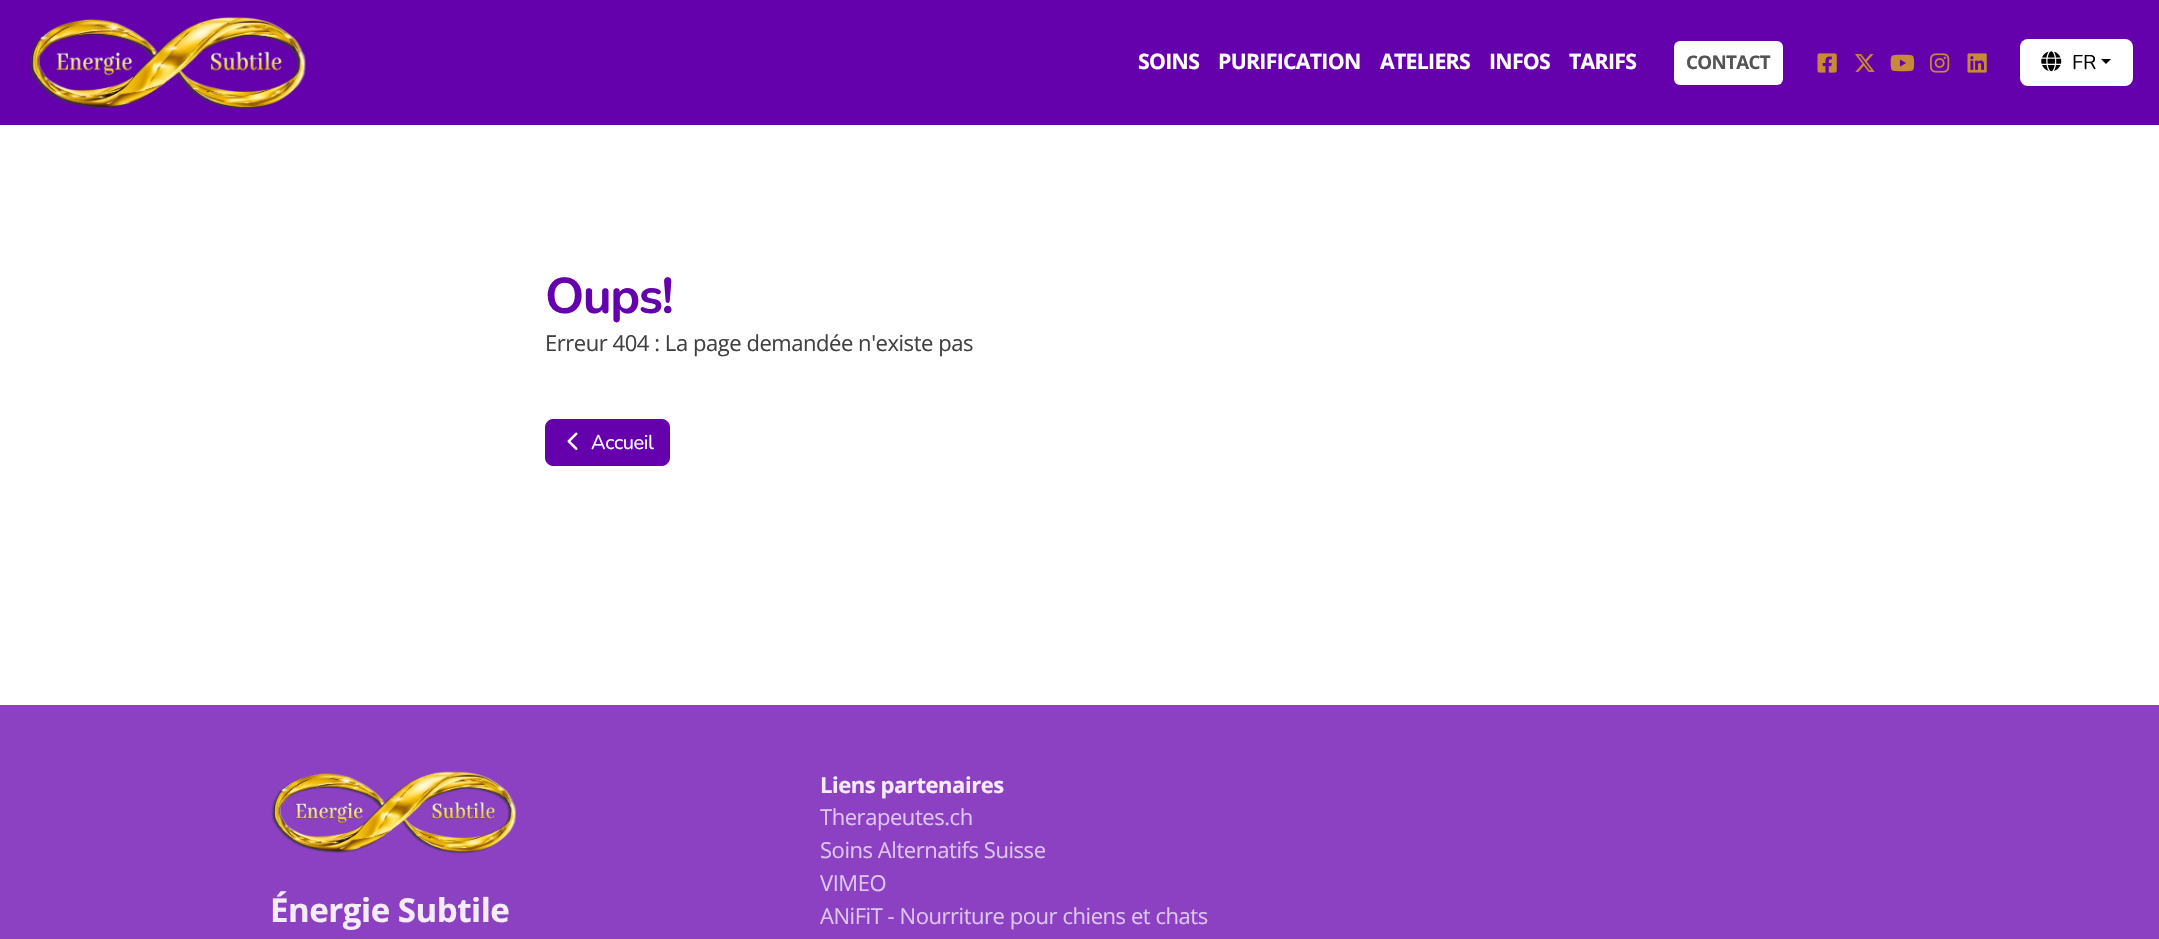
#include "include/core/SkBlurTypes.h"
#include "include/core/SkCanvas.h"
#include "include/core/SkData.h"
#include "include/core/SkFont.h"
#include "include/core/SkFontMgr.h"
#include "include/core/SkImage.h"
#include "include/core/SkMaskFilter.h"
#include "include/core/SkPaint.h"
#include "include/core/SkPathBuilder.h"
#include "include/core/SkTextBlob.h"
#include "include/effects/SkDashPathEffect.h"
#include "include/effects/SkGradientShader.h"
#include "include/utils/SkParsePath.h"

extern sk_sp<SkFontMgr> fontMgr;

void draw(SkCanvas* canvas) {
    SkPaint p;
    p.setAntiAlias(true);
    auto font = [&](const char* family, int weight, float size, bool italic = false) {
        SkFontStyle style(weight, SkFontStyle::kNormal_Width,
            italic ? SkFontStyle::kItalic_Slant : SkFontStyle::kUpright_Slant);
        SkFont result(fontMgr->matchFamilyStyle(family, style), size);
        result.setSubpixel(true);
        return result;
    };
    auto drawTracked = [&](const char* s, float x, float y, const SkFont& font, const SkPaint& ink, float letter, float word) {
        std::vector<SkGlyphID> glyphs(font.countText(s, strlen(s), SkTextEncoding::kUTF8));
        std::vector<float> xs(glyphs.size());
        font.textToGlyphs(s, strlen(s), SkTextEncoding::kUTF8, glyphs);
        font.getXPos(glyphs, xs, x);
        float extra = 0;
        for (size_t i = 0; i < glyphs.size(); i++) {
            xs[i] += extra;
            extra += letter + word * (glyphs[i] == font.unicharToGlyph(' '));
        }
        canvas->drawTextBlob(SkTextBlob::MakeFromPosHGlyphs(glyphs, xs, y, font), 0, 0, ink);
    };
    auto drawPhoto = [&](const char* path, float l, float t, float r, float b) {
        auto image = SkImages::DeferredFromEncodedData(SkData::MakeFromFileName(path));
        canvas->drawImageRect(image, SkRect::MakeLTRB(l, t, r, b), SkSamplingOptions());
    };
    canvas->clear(0xFFFFFFFF);
    p.setColor(0xFF6500AD);
    canvas->drawRect(SkRect::MakeLTRB(0, 0, 2159, 125), p);
    drawPhoto("media/1.png", 29, 17, 306, 110);
    auto font1 = font("Open Sans", 700, 21.25f);
    p.setColor(0xFFFFFFFF);
    {
        const struct { const char* s; float x, y; } items[] = {
            {"SOINS", 1138, 69},
            {"PURIFICATION", 1218, 69},
            {"ATELIERS", 1380, 69},
            {"INFOS", 1489, 69},
            {"TARIFS", 1569, 69},
        };
        for (auto [s, x, y] : items) {
            drawTracked(s, x, y, font1, p, -0.7f, 0);
        }
    }
    canvas->drawRoundRect(SkRect::MakeLTRB(1674, 41, 1783, 85), 6, 6, p);
    auto font2 = font("Open Sans", 700, 18.75f);
    p.setColor(0xFF545454);
    drawTracked("CONTACT", 1686, 69, font2, p, -0.7f, 0);
    drawPhoto("media/2.png", 1817, 53, 1837, 73);
    drawPhoto("media/3.png", 1855, 54, 1875, 72);
    drawPhoto("media/4.png", 1890, 54, 1915, 72);
    drawPhoto("media/5.png", 1930, 53, 1950, 73);
    drawPhoto("media/6.png", 1967, 53, 1987, 73);
    p.setColor(0xFFFFFFFF);
    canvas->drawRoundRect(SkRect::MakeLTRB(2020, 39, 2133, 86), 8, 8, p);
    drawPhoto("media/7.png", 2041, 51, 2062, 72);
    auto font3 = font("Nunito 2", 200, 20);
    p.setColor(0xFF000000);
    canvas->drawString("FR", 2072, 69, font3, p);
    canvas->drawPath(SkPathBuilder().moveTo(2101, 59).lineTo(2111, 59).lineTo(2106, 64).close().detach(), p);
    auto font4 = font("Nunito", 200, 50);
    p.setColor(0xFF6500AD);
    drawTracked("Oups!", 545, 313, font4, p, -1.5f, 0);
    auto font5 = font("Open Sans", 400, 22);
    p.setColor(0xFF404040);
    drawTracked("Erreur 404 : La page demandée n'existe pas", 545, 351, font5, p, -0.45f, 0);
    p.setColor(0xFF6500AD);
    canvas->drawRoundRect(SkRect::MakeLTRB(545.5f, 419.5f, 669.5f, 465.5f), 7.5f, 7.5f, p);
    p.setStyle(SkPaint::kStroke_Style);
    p.setStrokeWidth(1);
    canvas->drawRoundRect(SkRect::MakeLTRB(545.5f, 419.5f, 669.5f, 465.5f), 7.5f, 7.5f, p);
    drawPhoto("media/8.png", 567, 432, 578, 450);
    p.setStyle(SkPaint::kFill_Style);
    p.setColor(0xFFFFFFFF);
    drawTracked("Accueil", 591, 449, font3, p, -0.45f, 0);
    p.setColor(0xFF8C40C2);
    canvas->drawRect(SkRect::MakeLTRB(0, 705, 2159, 939), p);
    drawPhoto("media/9.png", 271, 771, 517, 854);
    auto font6 = font("Open Sans", 700, 33);
    p.setColor(0xFFF4ECF9);
    drawTracked("Énergie Subtile", 270, 922, font6, p, -0.45f, 0);
    auto font7 = font("Open Sans", 700, 22);
    drawTracked("Liens partenaires", 820, 793, font7, p, -0.45f, 0);
    p.setColor(0xFFDDC6ED);
    {
        const struct { const char* s; float x, y; } items[] = {
            {"Therapeutes.ch", 820, 825},
            {"Soins Alternatifs Suisse", 820, 858},
            {"VIMEO", 820, 891},
            {"ANiFiT - Nourriture pour chiens et chats", 820, 924},
        };
        for (auto [s, x, y] : items) {
            drawTracked(s, x, y, font5, p, -0.45f, 0);
        }
    }
}
